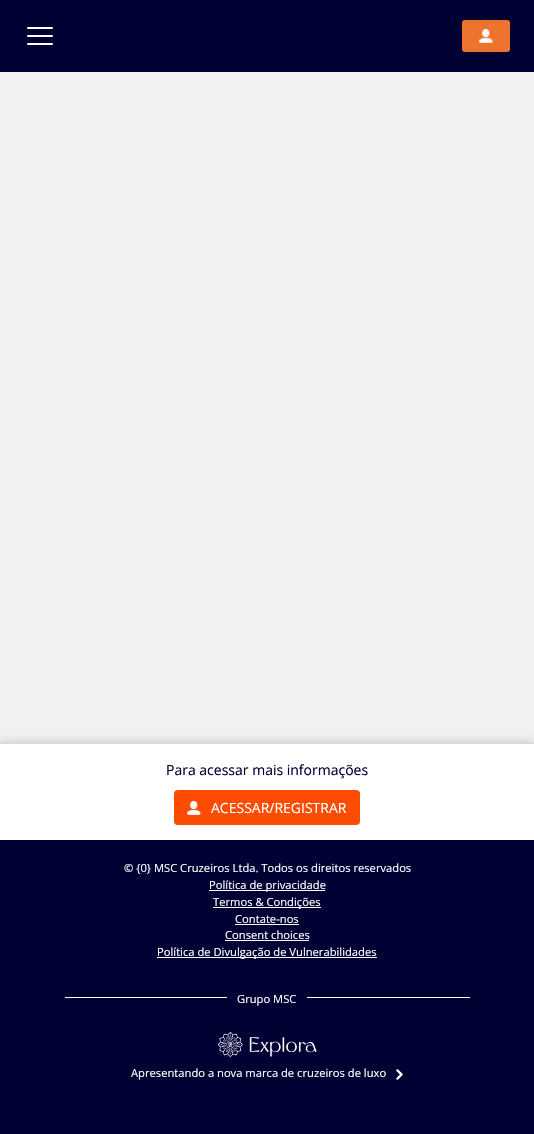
#include "include/core/SkBlurTypes.h"
#include "include/core/SkCanvas.h"
#include "include/core/SkData.h"
#include "include/core/SkFont.h"
#include "include/core/SkFontMgr.h"
#include "include/core/SkImage.h"
#include "include/core/SkMaskFilter.h"
#include "include/core/SkPaint.h"
#include "include/core/SkPathBuilder.h"
#include "include/core/SkTextBlob.h"
#include "include/effects/SkDashPathEffect.h"
#include "include/effects/SkGradientShader.h"
#include "include/utils/SkParsePath.h"

extern sk_sp<SkFontMgr> fontMgr;

void draw(SkCanvas* canvas) {
    SkPaint p;
    p.setAntiAlias(true);
    auto font = [&](const char* family, int weight, float size, bool italic = false) {
        SkFontStyle style(weight, SkFontStyle::kNormal_Width,
            italic ? SkFontStyle::kItalic_Slant : SkFontStyle::kUpright_Slant);
        SkFont result(fontMgr->matchFamilyStyle(family, style), size);
        result.setSubpixel(true);
        return result;
    };
    auto drawPhoto = [&](const char* path, float l, float t, float r, float b) {
        auto image = SkImages::DeferredFromEncodedData(SkData::MakeFromFileName(path));
        canvas->drawImageRect(image, SkRect::MakeLTRB(l, t, r, b), SkSamplingOptions());
    };
    canvas->clear(0xFFF1F1F1);
    p.setColor(0xFF000033);
    canvas->drawRect(SkRect::MakeLTRB(0, 0, 534, 72), p);
    drawPhoto("media/1.png", 27, 27, 53, 45);
    p.setColor(0xFFEE732F);
    canvas->drawRoundRect(SkRect::MakeLTRB(462, 20, 510, 52), 3, 3, p);
    drawPhoto("media/2.png", 479, 29, 493, 43);
    p.setColor(0xFF000033);
    canvas->drawRect(SkRect::MakeLTRB(0, 840, 534, 1134), p);
    p.setColor(0x33000000);
    p.setMaskFilter(SkMaskFilter::MakeBlur(kNormal_SkBlurStyle, 5));
    canvas->drawRect(SkRect::MakeLTRB(0, 743, 534, 840), p);
    p.setMaskFilter(nullptr);
    p.setColor(0xFFFFFFFF);
    canvas->drawRect(SkRect::MakeLTRB(0, 744, 534, 840), p);
    p.setColor(0xFFD9D9D9);
    canvas->drawRect(SkRect::MakeLTRB(0, 743, 534, 744), p);
    auto font1 = font("Open Sans", 400, 14);
    p.setColor(0xFF000033);
    canvas->drawString("Para acessar mais informações", 166, 775, font1, p);
    p.setColor(0xFFFC4C02);
    canvas->drawRoundRect(SkRect::MakeLTRB(174, 790, 360, 825), 4, 4, p);
    drawPhoto("media/3.png", 187, 801, 201, 815);
    p.setColor(0xFFFFFFFF);
    canvas->drawString("ACESSAR/REGISTRAR", 211, 813, font1, p);
    auto font2 = font("Open Sans", 400, 11.2f);
    canvas->drawString("© {0} MSC Cruzeiros Ltda. Todos os direitos reservados", 124, 872, font2, p);
    canvas->drawRect(SkRect::MakeLTRB(209, 890, 325, 891), p);
    canvas->drawString("Política de privacidade", 209, 889, font2, p);
    canvas->drawRect(SkRect::MakeLTRB(213, 907, 321, 908), p);
    canvas->drawString("Termos & Condições", 213, 906, font2, p);
    canvas->drawString("Contate-nos", 235, 923, font2, p);
    canvas->drawRect(SkRect::MakeLTRB(235, 924, 299, 925), p);
    canvas->drawString("Consent choices", 225, 939, font2, p);
    canvas->drawRect(SkRect::MakeLTRB(225, 940, 309, 941), p);
    canvas->drawRect(SkRect::MakeLTRB(157, 957, 377, 958), p);
    canvas->drawString("Política de Divulgação de Vulnerabilidades", 157, 956, font2, p);
    canvas->drawRect(SkRect::MakeLTRB(65, 997, 470, 998), p);
    p.setColor(0xFF000033);
    canvas->drawRect(SkRect::MakeLTRB(227, 997, 307, 998), p);
    p.setColor(0xFFFFFFFF);
    canvas->drawString("Grupo MSC", 237, 1003, font2, p);
    drawPhoto("media/4.png", 218, 1032, 317, 1057);
    canvas->drawString("Apresentando a nova marca de cruzeiros de luxo", 131, 1077, font2, p);
    drawPhoto("media/5.png", 396, 1069, 403, 1080);
}
